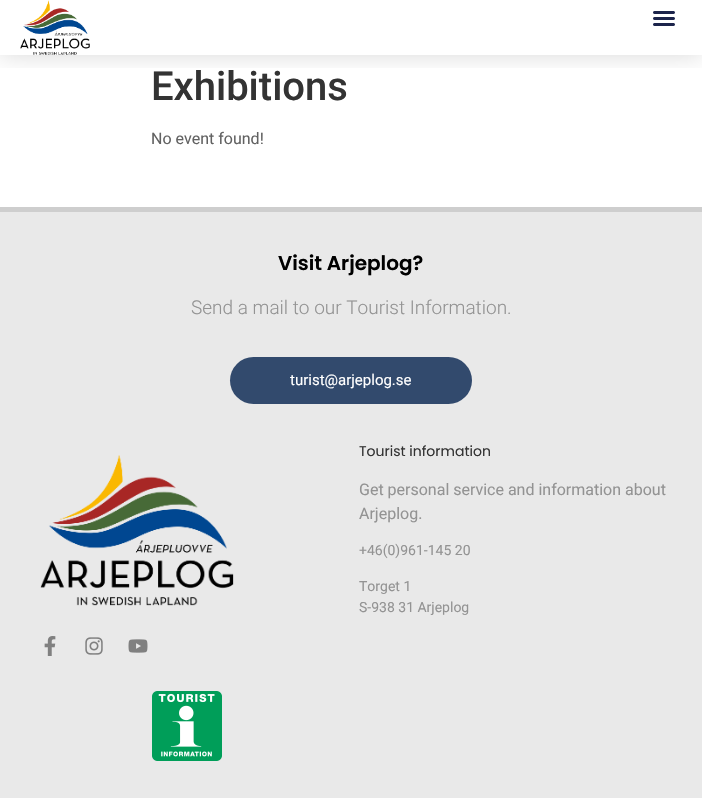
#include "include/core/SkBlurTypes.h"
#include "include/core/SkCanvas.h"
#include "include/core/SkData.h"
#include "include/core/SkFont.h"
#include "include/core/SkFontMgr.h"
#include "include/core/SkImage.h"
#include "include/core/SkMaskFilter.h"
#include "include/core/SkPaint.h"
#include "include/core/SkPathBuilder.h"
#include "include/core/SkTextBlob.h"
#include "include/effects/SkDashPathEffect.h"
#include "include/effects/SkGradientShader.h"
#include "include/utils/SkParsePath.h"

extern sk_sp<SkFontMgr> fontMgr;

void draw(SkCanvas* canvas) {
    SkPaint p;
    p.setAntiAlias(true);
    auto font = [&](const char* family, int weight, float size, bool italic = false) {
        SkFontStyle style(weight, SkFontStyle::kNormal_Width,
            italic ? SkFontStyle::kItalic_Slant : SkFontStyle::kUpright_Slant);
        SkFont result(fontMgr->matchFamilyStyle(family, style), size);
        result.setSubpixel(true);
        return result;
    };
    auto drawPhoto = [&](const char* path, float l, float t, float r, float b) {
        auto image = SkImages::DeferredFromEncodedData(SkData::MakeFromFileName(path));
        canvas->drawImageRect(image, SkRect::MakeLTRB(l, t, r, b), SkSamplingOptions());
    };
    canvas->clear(0xFFFFFFFF);
    canvas->save();
    canvas->clipRect(SkRect::MakeLTRB(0, 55, 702, 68));
    p.setColor(0x26000000);
    p.setMaskFilter(SkMaskFilter::MakeBlur(kNormal_SkBlurStyle, 12));
    canvas->drawRect(SkRect::MakeLTRB(0, 0, 702, 55), p);
    p.setMaskFilter(nullptr);
    canvas->restore();
    drawPhoto("media/1.png", 20, 0, 90, 55);
    drawPhoto("media/2.png", 653, 11, 675, 26);
    auto font1 = font("Roboto", 500, 40);
    p.setColor(0xFF333333);
    canvas->drawString("Exhibitions", 151, 100, font1, p);
    auto font2 = font("Roboto", 400, 16);
    p.setColor(0xFF626262);
    canvas->drawString("No event found!", 151, 144, font2, p);
    p.setColor(0xFFE9E9E9);
    canvas->drawRect(SkRect::MakeLTRB(0, 212, 702, 798), p);
    p.setColor(0xFFCECECE);
    canvas->drawRect(SkRect::MakeLTRB(0, 207, 702, 212), p);
    auto font3 = font("Poppins", 600, 20);
    p.setColor(0xFF000000);
    canvas->drawString("Visit Arjeplog?", 278, 270, font3, p);
    auto font4 = font("Roboto", 300, 19);
    p.setColor(0xFF939393);
    canvas->drawString("Send a mail to our Tourist Information.", 191, 314, font4, p);
    p.setColor(0xFF324A6D);
    canvas->drawRoundRect(SkRect::MakeLTRB(230, 357, 472, 404), 23.5f, 23.5f, p);
    auto font5 = font("Roboto", 400, 15);
    p.setColor(0xFFFFFFFF);
    canvas->drawString("turist@arjeplog.se", 290, 385, font5, p);
    drawPhoto("media/3.png", 40, 455, 234, 606);
    drawPhoto("media/4.png", 44, 636, 56, 656);
    drawPhoto("media/5.png", 85, 637, 103, 655);
    drawPhoto("media/6.png", 128, 639, 148, 653);
    auto font6 = font("Poppins", 400, 14);
    p.setColor(0xFF333333);
    canvas->drawString("Tourist information", 359, 456, font6, p);
    p.setColor(0xFF939393);
    canvas->drawString("Get personal service and information about", 359, 495, font2, p);
    canvas->drawString("Arjeplog.", 359, 519, font2, p);
    auto font7 = font("Roboto", 400, 14);
    {
        const struct { const char* s; float x, y; } items[] = {
            {"+46(0)961-145 20", 359, 555},
            {"Torget 1", 359, 591},
            {"S-938 31 Arjeplog", 359, 612},
        };
        for (auto [s, x, y] : items) {
            canvas->drawString(s, x, y, font7, p);
        }
    }
    drawPhoto("media/7.png", 152, 691, 222, 761);
}
